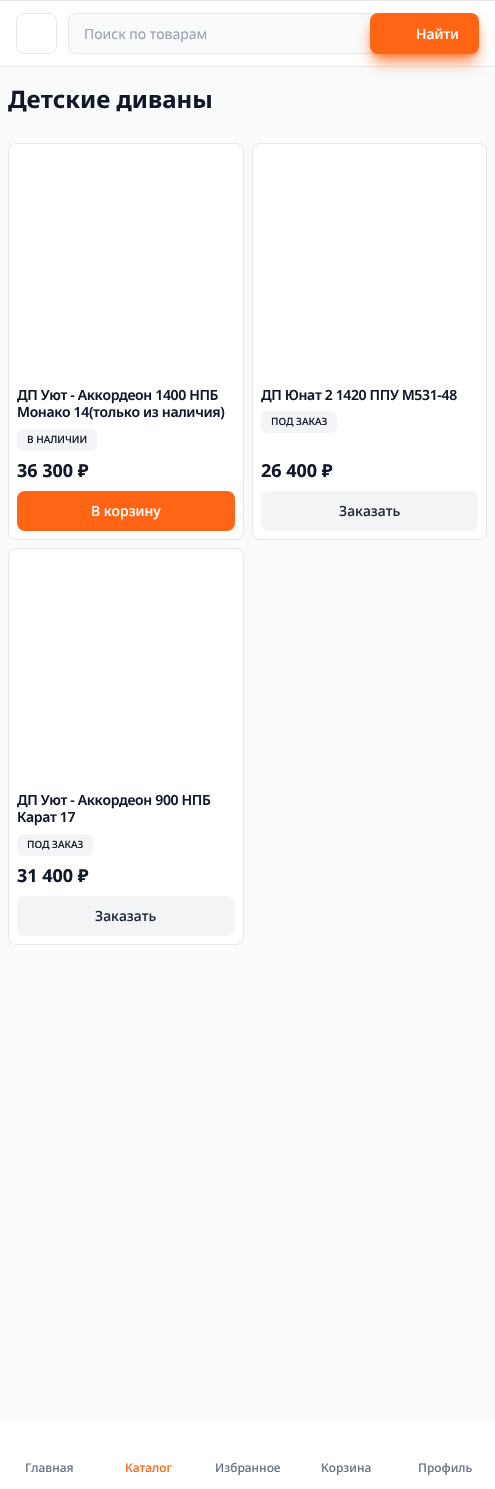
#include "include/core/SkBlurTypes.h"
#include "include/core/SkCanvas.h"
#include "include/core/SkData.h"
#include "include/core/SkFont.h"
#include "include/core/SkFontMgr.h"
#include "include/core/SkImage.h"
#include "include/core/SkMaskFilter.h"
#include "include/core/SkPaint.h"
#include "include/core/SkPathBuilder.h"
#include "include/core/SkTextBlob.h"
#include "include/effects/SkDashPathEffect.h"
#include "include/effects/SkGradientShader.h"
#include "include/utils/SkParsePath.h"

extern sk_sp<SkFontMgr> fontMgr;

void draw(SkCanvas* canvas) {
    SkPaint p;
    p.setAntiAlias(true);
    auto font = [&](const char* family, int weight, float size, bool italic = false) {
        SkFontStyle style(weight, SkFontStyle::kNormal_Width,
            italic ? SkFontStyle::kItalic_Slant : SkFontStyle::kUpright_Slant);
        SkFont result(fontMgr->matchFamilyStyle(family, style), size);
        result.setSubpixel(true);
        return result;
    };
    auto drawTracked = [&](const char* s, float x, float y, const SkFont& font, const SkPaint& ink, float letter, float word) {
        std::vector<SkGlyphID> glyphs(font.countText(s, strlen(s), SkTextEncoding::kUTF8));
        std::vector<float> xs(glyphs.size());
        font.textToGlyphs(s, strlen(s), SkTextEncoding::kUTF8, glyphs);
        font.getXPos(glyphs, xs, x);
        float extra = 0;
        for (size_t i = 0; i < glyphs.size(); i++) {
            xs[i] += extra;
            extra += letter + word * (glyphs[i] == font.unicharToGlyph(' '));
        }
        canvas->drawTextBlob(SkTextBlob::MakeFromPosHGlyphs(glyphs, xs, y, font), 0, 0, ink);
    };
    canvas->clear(0xFFF9FAFB);
    {
        const struct { float l, t, r, b; SkColor color; } items[] = {
            {0, 1, 495, 66, 0xFFFFFFFF},
            {0, 0, 495, 1, 0xFFE5E7EB},
            {0, 66, 495, 67, 0xFFE5E7EB},
        };
        for (auto [l, t, r, b, color] : items) {
            p.setColor(color);
            canvas->drawRect(SkRect::MakeLTRB(l, t, r, b), p);
        }
    }
    p.setStyle(SkPaint::kStroke_Style);
    p.setStrokeWidth(1);
    canvas->drawRoundRect(SkRect::MakeLTRB(16.5f, 13.5f, 56.5f, 53.5f), 7.5f, 7.5f, p);
    p.setStyle(SkPaint::kFill_Style);
    p.setColor(0xFFF9FAFB);
    canvas->drawPath(SkPathBuilder().moveTo(76, 13.5f).lineTo(377.5f, 13.5f).lineTo(377.5f, 53.5f).lineTo(76, 53.5f).cubicTo(72, 53.5f, 68.5f, 50, 68.5f, 46).lineTo(68.5f, 21).cubicTo(68.5f, 17, 72, 13.5f, 76, 13.5f).close().detach(), p);
    p.setStyle(SkPaint::kStroke_Style);
    p.setColor(0xFFE5E7EB);
    canvas->drawPath(SkPathBuilder().moveTo(76, 13.5f).lineTo(377.5f, 13.5f).lineTo(377.5f, 53.5f).lineTo(76, 53.5f).cubicTo(72, 53.5f, 68.5f, 50, 68.5f, 46).lineTo(68.5f, 21).cubicTo(68.5f, 17, 72, 13.5f, 76, 13.5f).close().detach(), p);
    auto font1 = font("Noto Sans", 400, 14);
    p.setStyle(SkPaint::kFill_Style);
    p.setColor(0xFF9CA3AF);
    canvas->drawString("Поиск по товарам", 84, 39, font1, p);
    p.setColor(0xFFFF7D3C);
    p.setMaskFilter(SkMaskFilter::MakeBlur(kNormal_SkBlurStyle, 3));
    canvas->drawRoundRect(SkRect::MakeLTRB(374, 21, 475, 54), 4, 4, p);
    p.setMaskFilter(nullptr);
    p.setMaskFilter(SkMaskFilter::MakeBlur(kNormal_SkBlurStyle, 7.5f));
    canvas->drawRoundRect(SkRect::MakeLTRB(373, 26, 476, 61), 5, 5, p);
    p.setMaskFilter(nullptr);
    p.setColor(0xFFFF6515);
    canvas->drawRoundRect(SkRect::MakeLTRB(370, 13, 479, 54), 8, 8, p);
    auto font2 = font("Noto Sans", 500, 14);
    p.setColor(0xFFFFFFFF);
    canvas->drawString("Найти", 416, 39, font2, p);
    auto font3 = font("Noto Sans", 700, 24);
    p.setColor(0xFF111928);
    canvas->drawString("Детские диваны", 8, 108, font3, p);
    p.setColor(0xFFFFFFFF);
    canvas->drawRoundRect(SkRect::MakeLTRB(8.5f, 143.5f, 243.5f, 539.5f), 7.5f, 7.5f, p);
    p.setStyle(SkPaint::kStroke_Style);
    p.setColor(0xFFE5E7EB);
    canvas->drawRoundRect(SkRect::MakeLTRB(8.5f, 143.5f, 243.5f, 539.5f), 7.5f, 7.5f, p);
    auto font4 = font("Noto Sans", 600, 14);
    p.setStyle(SkPaint::kFill_Style);
    p.setColor(0xFF111928);
    drawTracked("ДП Уют - Аккордеон 1400 НПБ", 17, 400, font4, p, -0.35f, 0);
    drawTracked("Монако 14(только из наличия)", 17, 417, font4, p, -0.35f, 0);
    p.setColor(0xFFF3F4F6);
    canvas->drawRoundRect(SkRect::MakeLTRB(17, 429, 97, 451), 6, 6, p);
    auto font5 = font("Noto Sans", 500, 10);
    p.setColor(0xFF111928);
    canvas->drawString("В НАЛИЧИИ", 27, 443, font5, p);
    auto font6 = font("Noto Sans", 700, 18);
    canvas->drawString("36 300 ₽", 17, 477, font6, p);
    p.setColor(0xFFFF6515);
    canvas->drawRoundRect(SkRect::MakeLTRB(17, 491, 235, 531), 8, 8, p);
    p.setColor(0xFFFFFFFF);
    canvas->drawString("В корзину", 91, 516, font2, p);
    canvas->drawRoundRect(SkRect::MakeLTRB(252.5f, 143.5f, 486.5f, 539.5f), 7.5f, 7.5f, p);
    p.setStyle(SkPaint::kStroke_Style);
    p.setColor(0xFFE5E7EB);
    canvas->drawRoundRect(SkRect::MakeLTRB(252.5f, 143.5f, 486.5f, 539.5f), 7.5f, 7.5f, p);
    canvas->save();
    canvas->clipRect(SkRect::MakeLTRB(261, 386, 478, 403));
    p.setStyle(SkPaint::kFill_Style);
    p.setColor(0xFF111928);
    drawTracked("ДП Юнат 2 1420 ППУ М531-48", 261, 400, font4, p, -0.35f, 0);
    canvas->restore();
    p.setColor(0xFFF3F4F6);
    canvas->drawRoundRect(SkRect::MakeLTRB(261, 411, 337, 433), 6, 6, p);
    p.setColor(0xFF111928);
    canvas->drawString("ПОД ЗАКАЗ", 271, 425, font5, p);
    canvas->drawString("26 400 ₽", 261, 477, font6, p);
    p.setColor(0xFFF3F4F6);
    canvas->drawRoundRect(SkRect::MakeLTRB(261, 491, 478, 531), 8, 8, p);
    p.setColor(0xFF1F2A37);
    canvas->drawString("Заказать", 339, 516, font2, p);
    p.setColor(0xFFFFFFFF);
    canvas->drawRoundRect(SkRect::MakeLTRB(8.5f, 548.5f, 243.5f, 944.5f), 7.5f, 7.5f, p);
    p.setStyle(SkPaint::kStroke_Style);
    p.setColor(0xFFE5E7EB);
    canvas->drawRoundRect(SkRect::MakeLTRB(8.5f, 548.5f, 243.5f, 944.5f), 7.5f, 7.5f, p);
    p.setStyle(SkPaint::kFill_Style);
    p.setColor(0xFF111928);
    drawTracked("ДП Уют - Аккордеон 900 НПБ", 17, 805, font4, p, -0.35f, 0);
    drawTracked("Карат 17", 17, 822, font4, p, -0.35f, 0);
    p.setColor(0xFFF3F4F6);
    canvas->drawRoundRect(SkRect::MakeLTRB(17, 834, 93, 856), 6, 6, p);
    p.setColor(0xFF111928);
    canvas->drawString("ПОД ЗАКАЗ", 27, 848, font5, p);
    canvas->drawString("31 400 ₽", 17, 882, font6, p);
    p.setColor(0xFFF3F4F6);
    canvas->drawRoundRect(SkRect::MakeLTRB(17, 896, 235, 936), 8, 8, p);
    p.setColor(0xFF1F2A37);
    canvas->drawString("Заказать", 95, 921, font2, p);
    p.setColor(0xFFFFFFFF);
    canvas->drawRect(SkRect::MakeLTRB(0, 1421, 495, 1489), p);
    auto font7 = font("Noto Sans", 500, 12);
    p.setColor(0xFF6B7280);
    canvas->drawString("Главная", 25, 1472, font7, p);
    p.setColor(0xFFFF6515);
    canvas->drawString("Каталог", 125, 1472, font7, p);
    p.setColor(0xFF6B7280);
    {
        const struct { const char* s; float x, y; } items[] = {
            {"Избранное", 215, 1472},
            {"Корзина", 321, 1472},
            {"Профиль", 418, 1472},
        };
        for (auto [s, x, y] : items) {
            canvas->drawString(s, x, y, font7, p);
        }
    }
}
